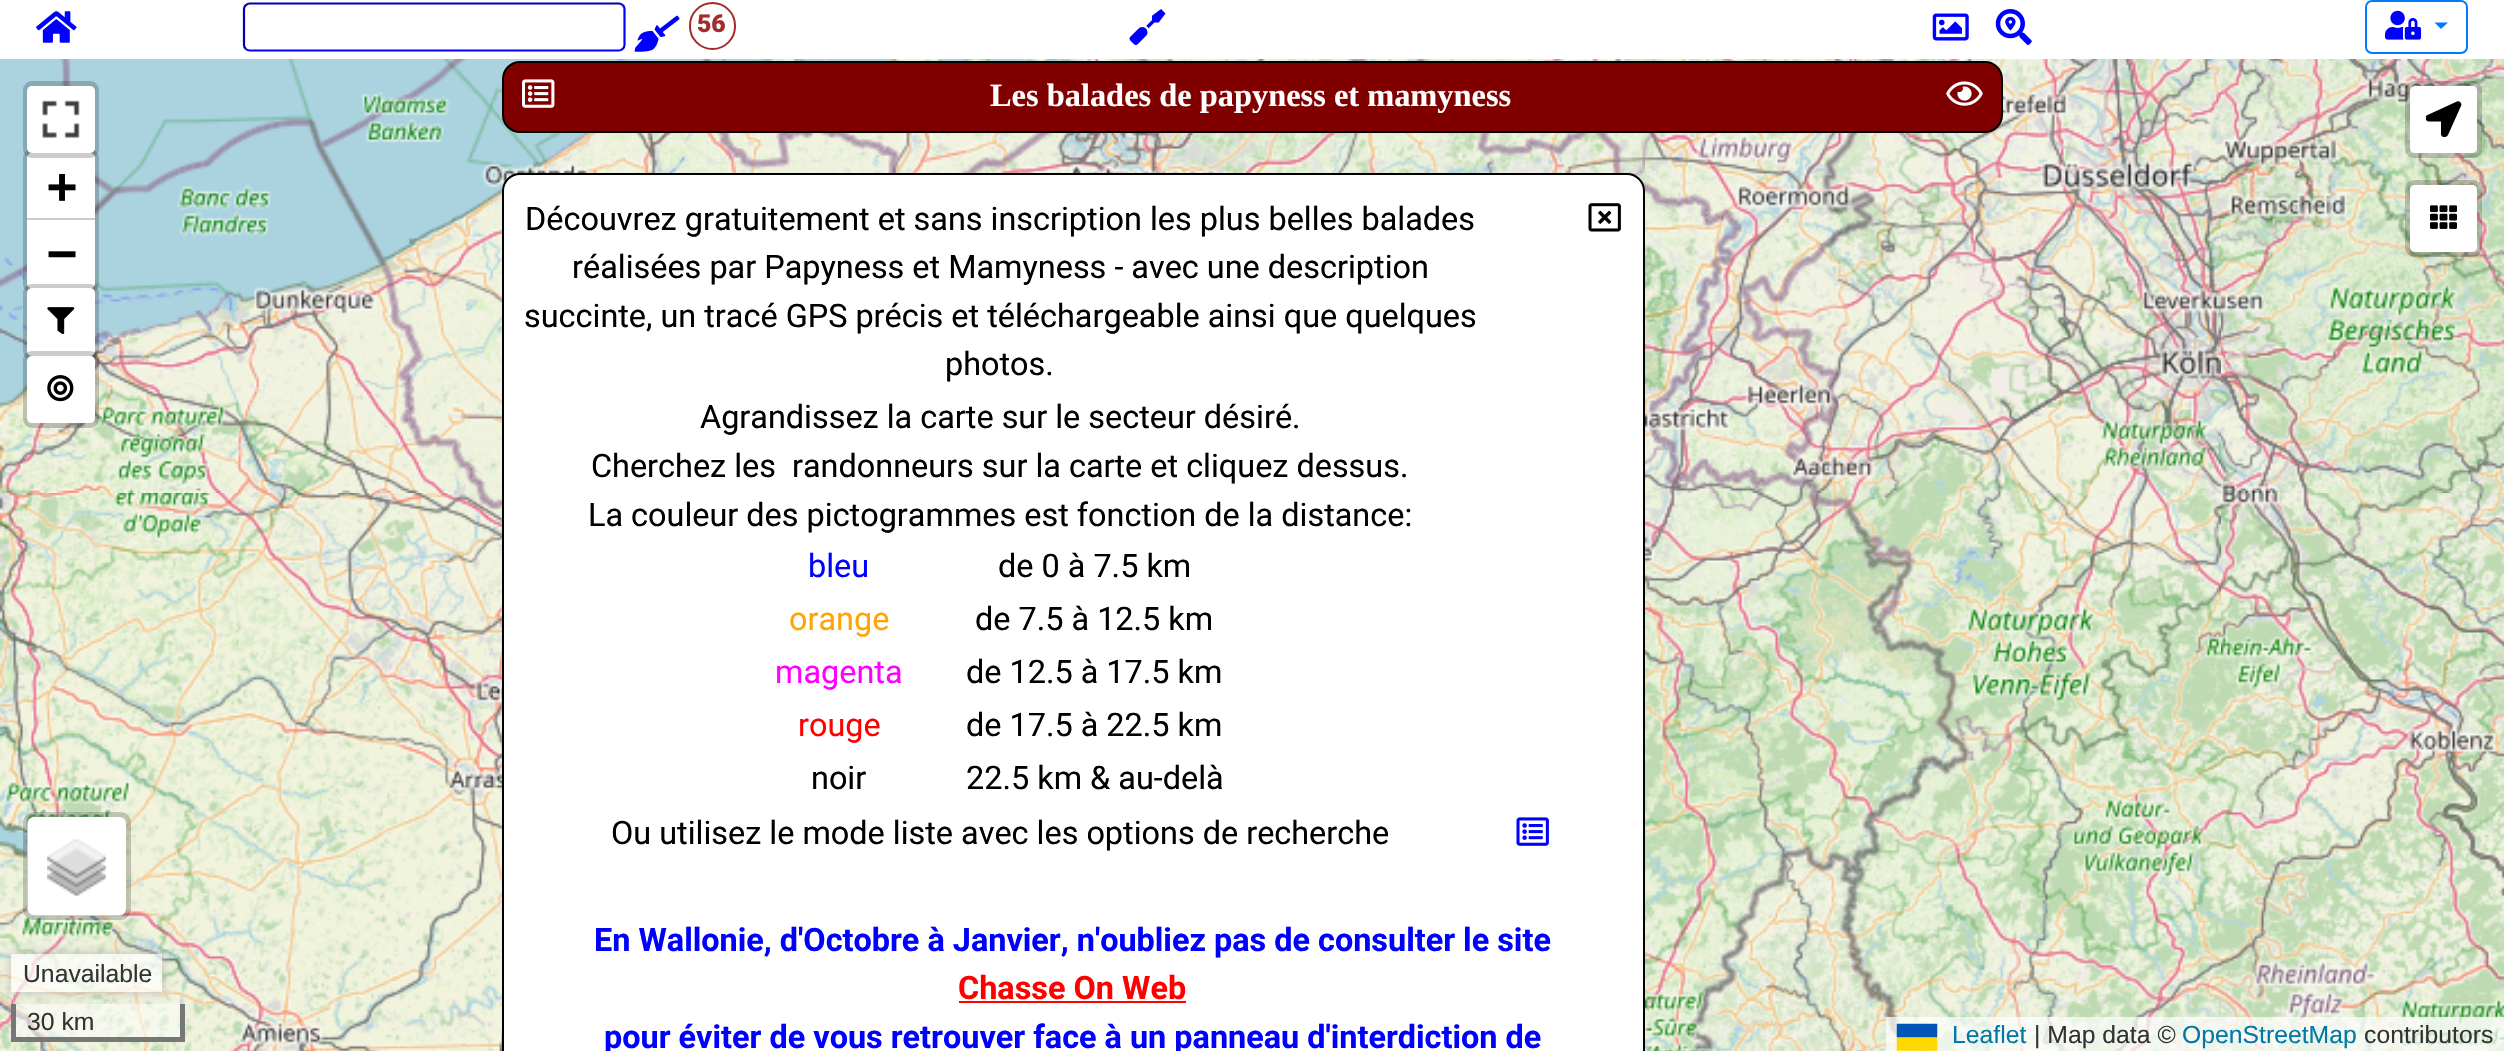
#include "include/core/SkBlurTypes.h"
#include "include/core/SkCanvas.h"
#include "include/core/SkData.h"
#include "include/core/SkFont.h"
#include "include/core/SkFontMgr.h"
#include "include/core/SkImage.h"
#include "include/core/SkMaskFilter.h"
#include "include/core/SkPaint.h"
#include "include/core/SkPathBuilder.h"
#include "include/core/SkTextBlob.h"
#include "include/effects/SkDashPathEffect.h"
#include "include/effects/SkGradientShader.h"
#include "include/utils/SkParsePath.h"

extern sk_sp<SkFontMgr> fontMgr;

void draw(SkCanvas* canvas) {
    SkPaint p;
    p.setAntiAlias(true);
    auto font = [&](const char* family, int weight, float size, bool italic = false) {
        SkFontStyle style(weight, SkFontStyle::kNormal_Width,
            italic ? SkFontStyle::kItalic_Slant : SkFontStyle::kUpright_Slant);
        SkFont result(fontMgr->matchFamilyStyle(family, style), size);
        result.setSubpixel(true);
        return result;
    };
    auto drawPhoto = [&](const char* path, float l, float t, float r, float b) {
        auto image = SkImages::DeferredFromEncodedData(SkData::MakeFromFileName(path));
        canvas->drawImageRect(image, SkRect::MakeLTRB(l, t, r, b), SkSamplingOptions());
    };
    canvas->clear(0xFFFFFFFF);
    drawPhoto("media/1.png", 36, 11, 77, 43);
    p.setStyle(SkPaint::kStroke_Style);
    p.setStrokeWidth(2.2f);
    p.setColor(0xFF0000FF);
    canvas->drawPath(SkPathBuilder().moveTo(622.5f, 5).cubicTo(624, 6, 624.5f, 7.5f, 624.5f, 9).lineTo(624.5f, 45).cubicTo(624.5f, 46.5f, 624, 48, 622.5f, 49).cubicTo(621.5f, 50, 620, 50.5f, 619, 50.5f).lineTo(250, 50.5f).cubicTo(248.5f, 50.5f, 247, 50, 246, 49).detach(), p);
    p.setColor(0xFF0000AA);
    canvas->drawPath(SkPathBuilder().moveTo(246, 49).cubicTo(244.5f, 48, 244, 46.5f, 244, 45).lineTo(244, 9).cubicTo(244, 7.5f, 244.5f, 6, 246, 5).cubicTo(247, 4, 248.5f, 3.5f, 250, 3.5f).lineTo(619, 3.5f).cubicTo(620, 3.5f, 621.5f, 4, 622.5f, 5).detach(), p);
    drawPhoto("media/2.png", 634, 15, 680, 52);
    p.setStrokeWidth(2);
    p.setColor(0xFFA52A2A);
    canvas->drawRoundRect(SkRect::MakeLTRB(690, 3, 735, 49), 22.5f, 22.5f, p);
    auto font1 = font("Roboto", 900, 24.75f);
    p.setStyle(SkPaint::kFill_Style);
    canvas->drawString("56", 697, 32, font1, p);
    drawPhoto("media/3.png", 1129, 9, 1166, 45);
    drawPhoto("media/4.png", 1932, 13, 1969, 41);
    drawPhoto("media/5.png", 1995, 9, 2032, 45);
    p.setStyle(SkPaint::kStroke_Style);
    p.setColor(0xFF007BFF);
    canvas->drawRoundRect(SkRect::MakeLTRB(2366, 1, 2467, 53), 6, 6, p);
    drawPhoto("media/6.png", 2385, 10, 2421, 40);
    p.setStyle(SkPaint::kFill_Style);
    canvas->drawPath(SkPathBuilder().moveTo(2434.5f, 22.5f).lineTo(2448, 22.5f).lineTo(2441, 29).close().detach(), p);
    drawPhoto("media/12.png", 493, 59, 1069, 493);
    drawPhoto("media/13.png", 1069, 59, 1645, 191);
    drawPhoto("media/14.png", 1645, 59, 2221, 493);
    p.setColor(0xFF800000);
    canvas->drawRoundRect(SkRect::MakeLTRB(503, 62, 2002, 132), 17, 17, p);
    p.setStyle(SkPaint::kStroke_Style);
    p.setColor(0xFF000000);
    canvas->drawRoundRect(SkRect::MakeLTRB(503, 62, 2002, 132), 17, 17, p);
    drawPhoto("media/7.png", 522, 79, 555, 108);
    auto font2 = font("Liberation Serif", 700, 32.4f);
    p.setStyle(SkPaint::kFill_Style);
    p.setColor(0xFFFFFFFF);
    canvas->drawString("Les balades de papyness et mamyness", 990, 106, font2, p);
    drawPhoto("media/8.png", 1946, 81, 1983, 106);
    canvas->drawRoundRect(SkRect::MakeLTRB(503, 174, 1644, 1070), 17, 17, p);
    p.setStyle(SkPaint::kStroke_Style);
    p.setColor(0xFF000000);
    canvas->drawRoundRect(SkRect::MakeLTRB(503, 174, 1644, 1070), 17, 17, p);
    auto font3 = font("Roboto", 400, 32.4f);
    p.setStyle(SkPaint::kFill_Style);
    {
        const struct { const char* s; float x, y; } items[] = {
            {"Découvrez gratuitement et sans inscription les plus belles balades", 525, 230},
            {"réalisées par Papyness et Mamyness - avec une description", 572, 278},
            {"succinte, un tracé GPS précis et téléchargeable ainsi que quelques", 524, 327},
            {"photos.", 945, 375},
        };
        for (auto [s, x, y] : items) {
            canvas->drawString(s, x, y, font3, p);
        }
    }
    drawPhoto("media/9.png", 1588, 203, 1621, 232);
    {
        const struct { const char* s; float x, y; } items[] = {
            {"Agrandissez la carte sur le secteur désiré.", 700, 428},
            {"Cherchez les", 591, 477},
            {"randonneurs sur la carte et cliquez dessus.", 792, 477},
            {"La couleur des pictogrammes est fonction de la distance:", 588, 526},
        };
        for (auto [s, x, y] : items) {
            canvas->drawString(s, x, y, font3, p);
        }
    }
    p.setColor(0xFF0000FF);
    canvas->drawString("bleu", 808, 577, font3, p);
    p.setColor(0xFF000000);
    canvas->drawString("de 0 à 7.5 km", 998, 577, font3, p);
    p.setColor(0xFFFFA500);
    canvas->drawString("orange", 789, 630, font3, p);
    p.setColor(0xFF000000);
    canvas->drawString("de 7.5 à 12.5 km", 975, 630, font3, p);
    p.setColor(0xFFFF00FF);
    canvas->drawString("magenta", 775, 683, font3, p);
    p.setColor(0xFF000000);
    canvas->drawString("de 12.5 à 17.5 km", 966, 683, font3, p);
    p.setColor(0xFFFF0000);
    canvas->drawString("rouge", 798, 736, font3, p);
    p.setColor(0xFF000000);
    {
        const struct { const char* s; float x, y; } items[] = {
            {"de 17.5 à 22.5 km", 966, 736},
            {"noir", 811, 789},
            {"22.5 km & au-delà", 966, 789},
            {"Ou utilisez le mode liste avec les options de recherche", 611, 844},
        };
        for (auto [s, x, y] : items) {
            canvas->drawString(s, x, y, font3, p);
        }
    }
    drawPhoto("media/10.png", 1516, 817, 1549, 846);
    auto font4 = font("Roboto", 700, 32.4f);
    p.setColor(0xFF0000FF);
    canvas->drawString("En Wallonie, d'Octobre à Janvier, n'oubliez pas de consulter le site", 594, 951, font4, p);
    p.setColor(0xFFFF0000);
    canvas->drawString("Chasse On Web", 958, 999, font4, p);
    canvas->drawRect(SkRect::MakeLTRB(959, 1001, 1186, 1003), p);
    p.setColor(0xFF0000FF);
    canvas->drawString("pour éviter de vous retrouver face à un panneau d'interdiction de", 604, 1048, font4, p);
    drawPhoto("media/11.png", 0, 59, 493, 493);
    drawPhoto("media/15.png", 2221, 59, 2504, 493);
    drawPhoto("media/16.png", 0, 493, 493, 1051);
    drawPhoto("media/17.png", 493, 493, 502, 1051);
    drawPhoto("media/18.png", 1645, 493, 2221, 1051);
    drawPhoto("media/19.png", 2221, 493, 2504, 1051);
    p.setStyle(SkPaint::kStroke_Style);
    p.setStrokeWidth(5);
    p.setColor(0x33000000);
    canvas->drawRoundRect(SkRect::MakeLTRB(25.5f, 151.5f, 96.5f, 290.5f), 6.5f, 6.5f, p);
    p.setStyle(SkPaint::kFill_Style);
    p.setColor(0xFFFFFFFF);
    canvas->drawPath(SkPathBuilder().moveTo(32, 153).lineTo(90, 153).cubicTo(93, 153, 95, 155, 95, 158).lineTo(95, 221).lineTo(27, 221).lineTo(27, 158).cubicTo(27, 155, 29, 153, 32, 153).close().detach(), p);
    p.setStyle(SkPaint::kStroke_Style);
    p.setColor(0x33000000);
    canvas->drawRoundRect(SkRect::MakeLTRB(25.5f, 83.5f, 96.5f, 155.5f), 6.5f, 6.5f, p);
    p.setStyle(SkPaint::kFill_Style);
    p.setColor(0xFFFFFFFF);
    canvas->drawRoundRect(SkRect::MakeLTRB(27, 86, 95, 153), 5, 5, p);
    drawPhoto("media/20.png", 42, 100, 80, 138);
    p.setColor(0xFFCCCCCC);
    canvas->drawRect(SkRect::MakeLTRB(27, 218, 95, 220), p);
    auto font5 = font("DejaVu Sans Mono", 700, 50);
    p.setColor(0xFF000000);
    canvas->drawString("+", 47, 203, font5, p);
    p.setColor(0xFFFFFFFF);
    canvas->drawPath(SkPathBuilder().moveTo(27, 221).lineTo(95, 221).lineTo(95, 283).cubicTo(95, 286, 93, 288, 90, 288).lineTo(32, 288).cubicTo(29, 288, 27, 286, 27, 283).close().detach(), p);
    p.setColor(0xFF000000);
    canvas->drawString("−", 47, 270, font5, p);
    p.setStyle(SkPaint::kStroke_Style);
    p.setColor(0x33000000);
    canvas->drawRoundRect(SkRect::MakeLTRB(25.5f, 286.5f, 96.5f, 357.5f), 6.5f, 6.5f, p);
    p.setStyle(SkPaint::kFill_Style);
    p.setColor(0xFFFFFFFF);
    canvas->drawRoundRect(SkRect::MakeLTRB(27, 288, 95, 356), 5, 5, p);
    drawPhoto("media/21.png", 47, 307, 75, 335);
    p.setStyle(SkPaint::kStroke_Style);
    p.setColor(0x33000000);
    canvas->drawRoundRect(SkRect::MakeLTRB(25.5f, 353.5f, 96.5f, 425.5f), 6.5f, 6.5f, p);
    p.setStyle(SkPaint::kFill_Style);
    p.setColor(0xFFFFFFFF);
    canvas->drawRoundRect(SkRect::MakeLTRB(27, 356, 95, 423), 5, 5, p);
    drawPhoto("media/22.png", 47, 375, 74, 402);
    p.setStyle(SkPaint::kStroke_Style);
    p.setColor(0x33000000);
    canvas->drawRoundRect(SkRect::MakeLTRB(2407.5f, 83.5f, 2479.5f, 155.5f), 6.5f, 6.5f, p);
    p.setStyle(SkPaint::kFill_Style);
    p.setColor(0xFFFFFFFF);
    canvas->drawRoundRect(SkRect::MakeLTRB(2410, 86, 2477, 153), 5, 5, p);
    canvas->save();
    canvas->clipRect(SkRect::MakeLTRB(2426, 101, 2462, 137));
    p.setColor(0xFF000000);
    canvas->drawPath(SkPathBuilder().moveTo(2457, 101.5f).lineTo(2427.5f, 115).cubicTo(2424, 116.5f, 2425.5f, 121.5f, 2429, 121.5f).lineTo(2441, 121.5f).lineTo(2441, 134).cubicTo(2441, 137.5f, 2446, 138.5f, 2448, 135).lineTo(2461, 106).cubicTo(2462.5f, 103.5f, 2459.5f, 100.5f, 2457, 101.5f).close().detach(), p);
    canvas->restore();
    p.setStyle(SkPaint::kStroke_Style);
    p.setColor(0x33000000);
    canvas->drawRoundRect(SkRect::MakeLTRB(2407.5f, 182.5f, 2479.5f, 254.5f), 6.5f, 6.5f, p);
    p.setStyle(SkPaint::kFill_Style);
    p.setColor(0xFFFFFFFF);
    canvas->drawRoundRect(SkRect::MakeLTRB(2410, 185, 2477, 252), 5, 5, p);
    drawPhoto("media/23.png", 2430, 205, 2457, 229);
    canvas->drawRoundRect(SkRect::MakeLTRB(27, 817, 126, 916), 7, 7, p);
    p.setStyle(SkPaint::kStroke_Style);
    p.setColor(0x33000000);
    canvas->drawRoundRect(SkRect::MakeLTRB(25.5f, 814.5f, 128.5f, 917.5f), 8.5f, 8.5f, p);
    drawPhoto("media/24.png", 47, 838, 106, 896);
    canvas->save();
    canvas->clipPath(SkPathBuilder(SkPathFillType::kEvenOdd).moveTo(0, 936).lineTo(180, 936).lineTo(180, 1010).lineTo(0, 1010).close().moveTo(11, 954).lineTo(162, 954).lineTo(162, 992).lineTo(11, 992).close().detach(), true);
    p.setStyle(SkPaint::kFill_Style);
    p.setColor(0xFFBBBBBB);
    p.setMaskFilter(SkMaskFilter::MakeBlur(kNormal_SkBlurStyle, 5.5f));
    canvas->drawRect(SkRect::MakeLTRB(11, 954, 162, 992), p);
    p.setMaskFilter(nullptr);
    canvas->restore();
    p.setColor(0xB3FFFFFF);
    canvas->drawRect(SkRect::MakeLTRB(11, 954, 162, 992), p);
    auto font6 = font("Liberation Sans", 400, 24.75f);
    p.setColor(0xFF333333);
    canvas->drawString("Unavailable", 23, 982, font6, p);
    {
        const struct { float l, t, r, b; SkColor color; } items[] = {
            {16, 1004, 180, 1037, 0x80FFFFFF},
            {180, 1004, 185, 1042, 0xFF777777},
            {11, 1037, 185, 1042, 0xFF777777},
            {11, 1004, 16, 1042, 0xFF777777},
        };
        for (auto [l, t, r, b, color] : items) {
            p.setColor(color);
            canvas->drawRect(SkRect::MakeLTRB(l, t, r, b), p);
        }
    }
    p.setColor(0xFF333333);
    canvas->drawString("30 km", 27, 1030, font6, p);
    p.setColor(0xB3FFFFFF);
    canvas->drawRect(SkRect::MakeLTRB(1886, 1017, 2504, 1051), p);
    drawPhoto("media/25.png", 1896, 1023, 1938, 1051);
    p.setColor(0xFF0078A8);
    canvas->drawString("Leaflet", 1952, 1043, font6, p);
    p.setColor(0xFF333333);
    canvas->drawString("| Map data ©", 2034, 1043, font6, p);
    p.setColor(0xFF0078A8);
    canvas->drawString("OpenStreetMap", 2182, 1043, font6, p);
    p.setColor(0xFF333333);
    canvas->drawString("contributors", 2364, 1043, font6, p);
}
